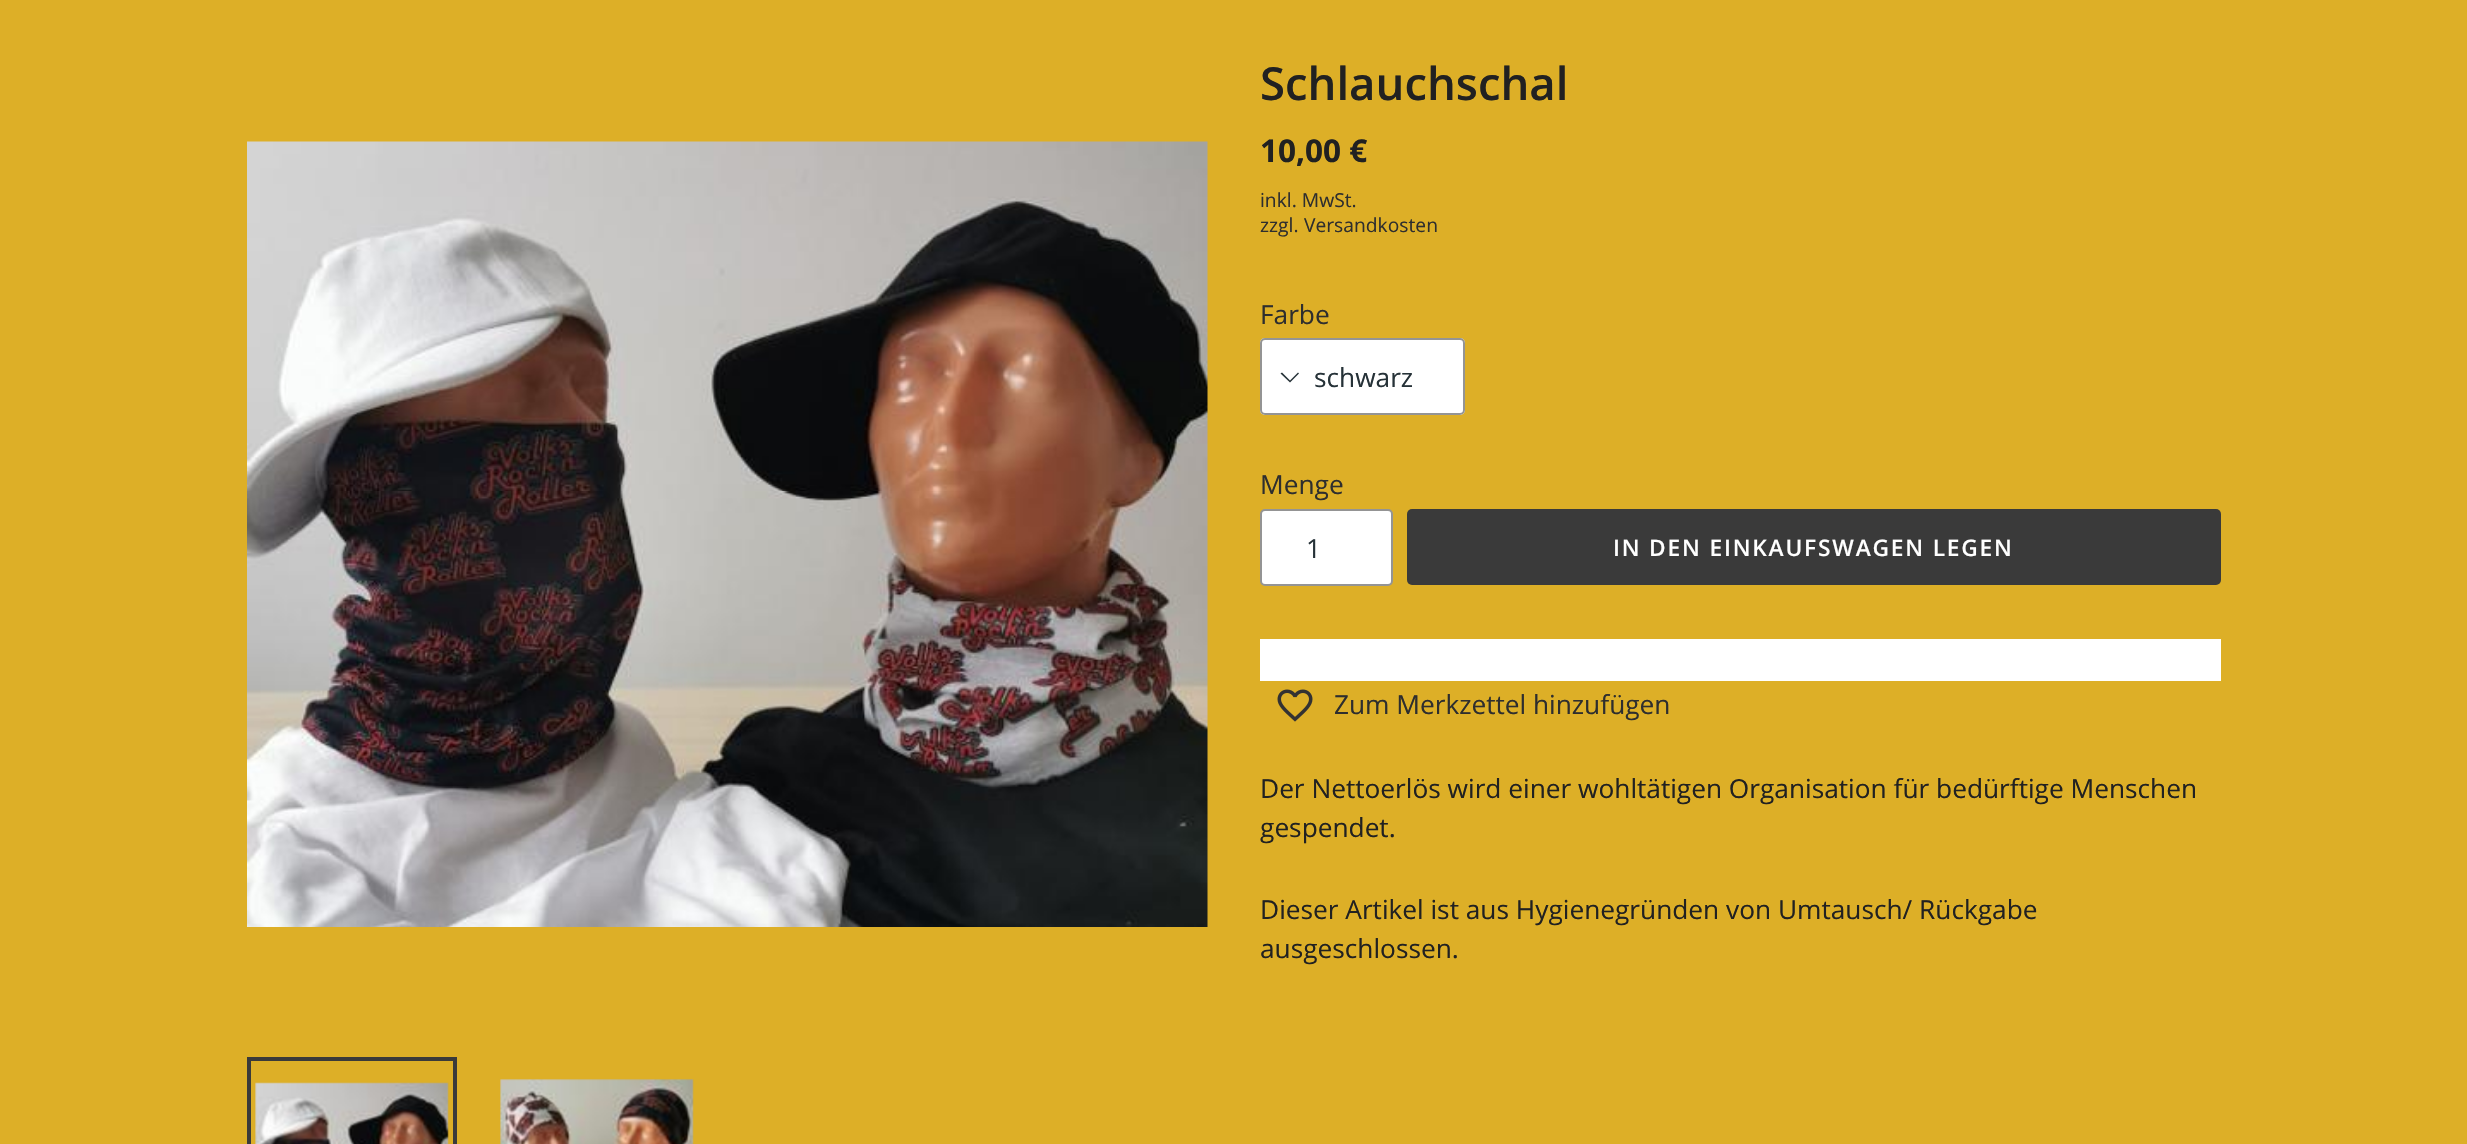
void draw(SkCanvas* canvas) {
	SkPaint fill;
	fill.setAntiAlias(true);
	auto makeFont = [&](const char* family, int weight, float size, bool italic = false) {
		SkFontStyle style(weight, SkFontStyle::kNormal_Width,
			italic ? SkFontStyle::kItalic_Slant : SkFontStyle::kUpright_Slant);
		SkFont result(fontMgr->matchFamilyStyle(family, style), size);
		result.setSubpixel(true);
		return result;
	};
	auto text = [&](const char* s, float x, float y, const SkFont& font) {
		canvas->drawString(s, x, y, font, fill);
	};
	auto spacedText = [&](const char* s, float x, float y, const SkFont& font, const SkPaint& ink, float letter, float word) {
		std::vector<SkGlyphID> glyphs(font.countText(s, strlen(s), SkTextEncoding::kUTF8));
		std::vector<float> xs(glyphs.size());
		font.textToGlyphs(s, strlen(s), SkTextEncoding::kUTF8, glyphs);
		font.getXPos(glyphs, xs, x);
		float extra = 0;
		for (size_t i = 0; i < glyphs.size(); i++) {
			xs[i] += extra;
			extra += letter + word * (glyphs[i] == font.unicharToGlyph(' '));
		}
		canvas->drawTextBlob(SkTextBlob::MakeFromPosHGlyphs(glyphs, xs, y, font), 0, 0, ink);
	};
	auto box = [&](float l, float t, float r, float b) {
		canvas->drawRect(SkRect::MakeLTRB(l, t, r, b), fill);
	};
	auto roundBox = [&](float l, float t, float r, float b, float radius) {
		canvas->drawRoundRect(SkRect::MakeLTRB(l, t, r, b), radius, radius, fill);
	};
	auto picture = [&](const char* path, float l, float t, float r, float b) {
		auto image = SkImages::DeferredFromEncodedData(SkData::MakeFromFileName(path));
		canvas->drawImageRect(image, SkRect::MakeLTRB(l, t, r, b), SkSamplingOptions());
	};
	canvas->clear(0xFFDDAF27);
	picture("image0.png", 247, 141, 1208, 927);
	fill.setStyle(SkPaint::kStroke_Style);
	fill.setStrokeWidth(4);
	fill.setColor(0xFF3A3A3A);
	canvas->drawRect(SkRect::MakeLTRB(249, 1059, 455, 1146), fill);
	picture("image1.png", 255, 1082, 449, 1144);
	picture("image2.png", 500, 1079, 694, 1144);
	fill.setStyle(SkPaint::kFill_Style);
	fill.setColor(0xFFFFFFFF);
	roundBox(1260, 338, 1465, 415, 5);
	fill.setColor(0xFF263238);
	canvas->drawPath(SkPathBuilder().moveTo(1290, 382.5f).lineTo(1280.5f, 373.5f).lineTo(1282, 372.5f).lineTo(1290, 380.5f).lineTo(1298, 372.5f).lineTo(1299, 373.5f).close().detach(), fill);
	fill.setStyle(SkPaint::kStroke_Style);
	fill.setStrokeWidth(2);
	fill.setColor(0xFF949494);
	canvas->drawRoundRect(SkRect::MakeLTRB(1261, 339, 1464, 414), 4, 4, fill);
	fill.setStyle(SkPaint::kFill_Style);
	fill.setColor(0xFFFFFFFF);
	canvas->drawRoundRect(SkRect::MakeLTRB(1261, 510, 1392, 585), 4, 4, fill);
	fill.setStyle(SkPaint::kStroke_Style);
	fill.setColor(0xFF949494);
	canvas->drawRoundRect(SkRect::MakeLTRB(1261, 510, 1392, 585), 4, 4, fill);
	fill.setStyle(SkPaint::kFill_Style);
	fill.setColor(0xFF3A3A3A);
	roundBox(1407, 509, 2221, 585, 5);
	fill.setColor(0xFFFFFFFF);
	box(1260, 639, 2221, 681);
	picture("image3.png", 1277, 689, 1313, 722);
	auto font1 = makeFont("Open Sans", 600, 45.5f);
	fill.setColor(0xFF212121);
	text("Schlauchschal", 1260, 100, font1);
	auto font2 = makeFont("Open Sans", 700, 31.5f);
	text("10,00 €", 1260, 162, font2);
	auto font3 = makeFont("Open Sans", 400, 19.25f);
	fill.setColor(0xFF2E2E2E);
	text("inkl. MwSt.", 1260, 207, font3);
	text("zzgl.", 1260, 232, font3);
	text("Versandkosten", 1304, 232, font3);
	auto font4 = makeFont("Open Sans", 400, 26.25f);
	text("Farbe", 1260, 324, font4);
	fill.setColor(0xFF263238);
	text("schwarz", 1314, 387, font4);
	fill.setColor(0xFF2E2E2E);
	text("Menge", 1260, 494, font4);
	fill.setColor(0xFF263238);
	text("1", 1306, 558, font4);
	auto font5 = makeFont("Open Sans", 600, 22.75f);
	fill.setColor(0xFFFFFFFF);
	spacedText("IN DEN EINKAUFSWAGEN LEGEN", 1613, 556, font5, fill, 1.8f, 0);
	fill.setColor(0xFF2E2E2E);
	text("Zum Merkzettel hinzufügen", 1334, 714, font4);
	fill.setColor(0xFF212121);
	text("Der Nettoerlös wird einer wohltätigen Organisation für bedürftige Menschen", 1260, 798, font4);
	text("gespendet.", 1260, 837, font4);
	text("Dieser Artikel ist aus Hygienegründen von Umtausch/ Rückgabe", 1260, 919, font4);
	text("ausgeschlossen.", 1260, 958, font4);
}
